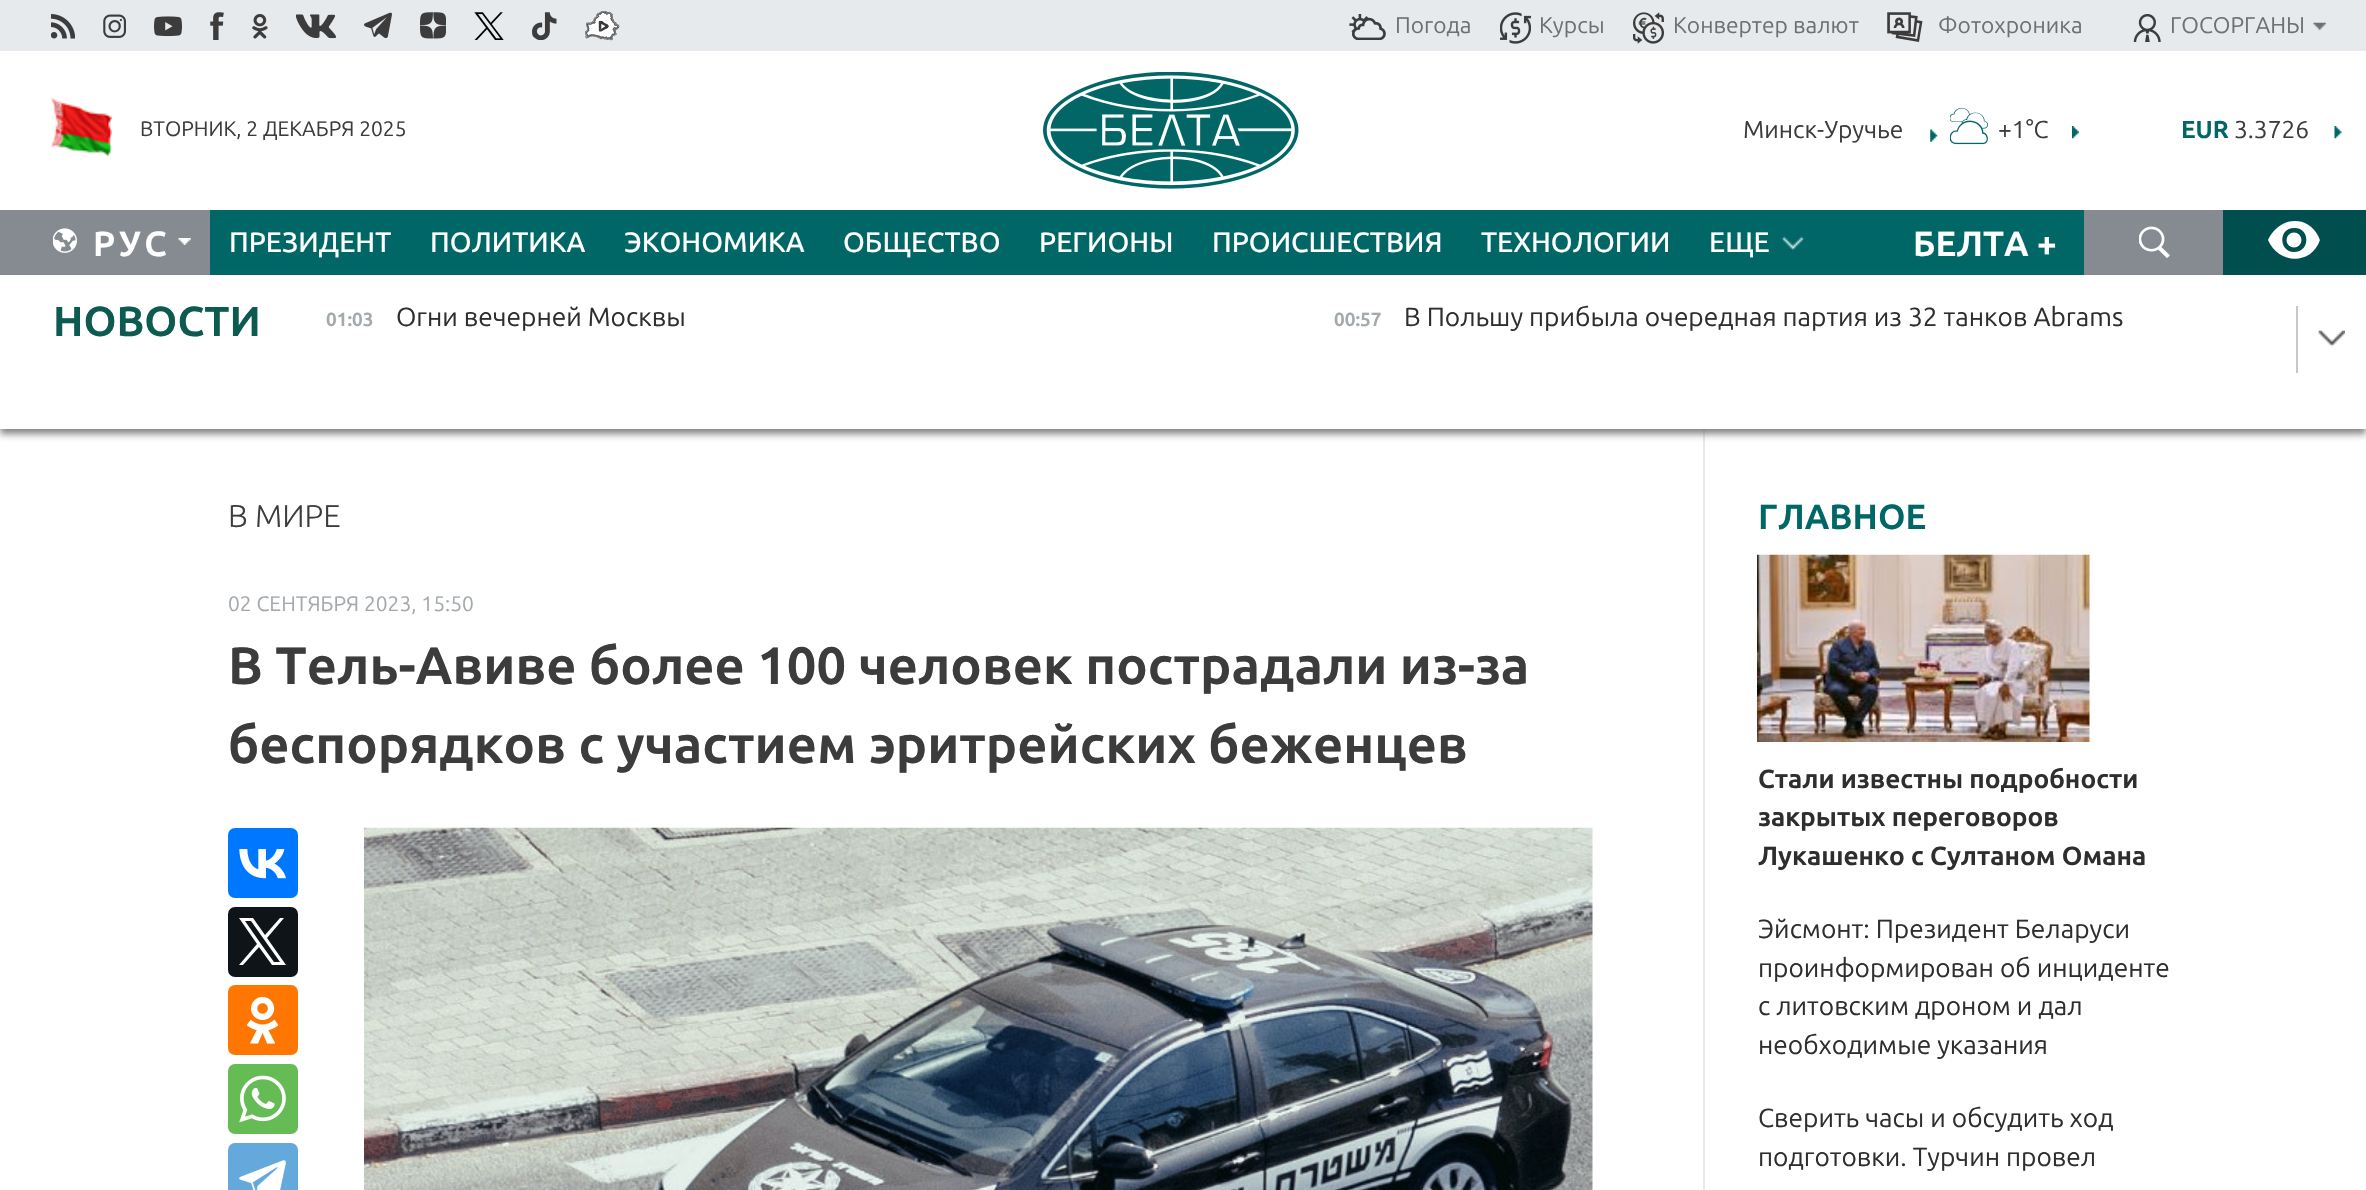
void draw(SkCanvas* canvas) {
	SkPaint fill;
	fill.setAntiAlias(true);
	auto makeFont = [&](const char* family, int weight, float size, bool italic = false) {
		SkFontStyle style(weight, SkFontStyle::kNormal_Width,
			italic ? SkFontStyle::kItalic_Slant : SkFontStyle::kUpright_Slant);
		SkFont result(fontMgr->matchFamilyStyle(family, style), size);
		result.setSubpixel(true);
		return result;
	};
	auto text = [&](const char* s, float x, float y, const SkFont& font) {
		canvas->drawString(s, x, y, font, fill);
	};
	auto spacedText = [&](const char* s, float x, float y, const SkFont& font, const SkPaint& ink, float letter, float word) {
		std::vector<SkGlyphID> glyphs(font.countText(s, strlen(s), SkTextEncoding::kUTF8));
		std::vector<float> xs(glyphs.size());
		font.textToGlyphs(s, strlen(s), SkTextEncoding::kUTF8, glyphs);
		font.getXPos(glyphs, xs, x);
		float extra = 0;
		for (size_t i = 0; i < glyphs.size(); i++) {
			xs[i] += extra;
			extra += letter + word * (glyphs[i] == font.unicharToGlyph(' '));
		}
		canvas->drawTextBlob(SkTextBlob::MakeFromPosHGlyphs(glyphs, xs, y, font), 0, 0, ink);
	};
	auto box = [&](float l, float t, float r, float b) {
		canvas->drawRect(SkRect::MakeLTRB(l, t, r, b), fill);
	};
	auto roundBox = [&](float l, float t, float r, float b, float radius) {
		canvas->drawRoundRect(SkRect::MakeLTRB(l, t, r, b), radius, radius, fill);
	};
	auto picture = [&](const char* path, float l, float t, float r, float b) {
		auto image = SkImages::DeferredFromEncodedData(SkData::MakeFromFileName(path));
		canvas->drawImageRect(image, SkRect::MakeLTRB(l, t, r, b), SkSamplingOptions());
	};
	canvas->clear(0xFFFFFFFF);
	fill.setColor(0xFFE6EAED);
	box(0, 0, 2366, 51);
	picture("image0.png", 51, 14, 75, 39);
	picture("image1.png", 103, 14, 126, 38);
	picture("image2.png", 154, 16, 182, 37);
	picture("image3.png", 210, 12, 224, 40);
	picture("image4.png", 252, 14, 268, 39);
	picture("image5.png", 296, 14, 336, 39);
	picture("image6.png", 364, 12, 392, 39);
	picture("image7.png", 420, 12, 446, 39);
	picture("image8.png", 474, 12, 504, 40);
	picture("image9.png", 532, 12, 557, 40);
	picture("image10.png", 585, 11, 620, 41);
	picture("image11.png", 1349, 14, 1386, 40);
	picture("image12.png", 1500, 12, 1531, 44);
	picture("image13.png", 1633, 12, 1664, 44);
	picture("image14.png", 1887, 12, 1923, 42);
	picture("image15.png", 2313, 22, 2326, 30);
	picture("image16.png", 2133, 14, 2161, 42);
	picture("image17.png", 50, 98, 112, 156);
	picture("image18.png", 1043, 72, 1299, 189);
	picture("image19.png", 1930, 129, 1938, 142);
	picture("image20.png", 1950, 107, 1988, 145);
	picture("image21.png", 2072, 126, 2079, 139);
	picture("image22.png", 2334, 126, 2342, 139);
	fill.setColor(0xFF006666);
	box(210, 210, 2084, 275);
	fill.setColor(0xFF858B90);
	box(0, 210, 210, 275);
	picture("image23.png", 53, 228, 77, 253);
	picture("image24.png", 178, 238, 191, 245);
	picture("image25.png", 1781, 236, 1805, 251);
	box(2084, 210, 2223, 275);
	picture("image26.png", 2139, 226, 2170, 258);
	fill.setColor(0xFF004E4E);
	box(2223, 210, 2366, 275);
	fill.setColor(0xFFFFFFFF);
	canvas->drawPath(SkPathBuilder().moveTo(2295, 221).cubicTo(2276, 221, 2268, 240, 2268, 240).cubicTo(2278, 264, 2311, 266, 2320, 240).cubicTo(2320, 240, 2314, 221, 2295, 221).close().moveTo(2294, 252).cubicTo(2279, 252, 2278, 228, 2294, 228).cubicTo(2310, 227, 2311, 252, 2294, 252).close().detach(), fill);
	canvas->drawCircle(2294, 240, 7.5f, fill);
	fill.setColor(0xFFE6EAED);
	box(1703, 429, 1705, 1190);
	fill.setColor(0xCC646464);
	fill.setMaskFilter(SkMaskFilter::MakeBlur(kNormal_SkBlurStyle, 3.5f));
	canvas->drawRect(SkRect::MakeLTRB(0, 280, 2366, 434), fill);
	fill.setMaskFilter(nullptr);
	fill.setColor(0xFFFFFFFF);
	box(0, 275, 2366, 429);
	picture("image27.png", 2318, 330, 2345, 347);
	fill.setColor(0xFFC8C8C8);
	box(2296, 306, 2298, 373);
	fill.setColor(0xFF0077FF);
	roundBox(228, 828, 298, 898, 7);
	picture("image28.png", 239, 849, 286, 879);
	fill.setColor(0xFF0F1419);
	roundBox(228, 907, 298, 977, 7);
	fill.setColor(0xFFFFFFFF);
	canvas->drawPath(SkPathBuilder().moveTo(267, 938).lineTo(284, 918).lineTo(280, 918).lineTo(265, 935).lineTo(253, 918).lineTo(239, 918).lineTo(257, 944).lineTo(239, 965).lineTo(243, 965).lineTo(259, 947).lineTo(272, 965).lineTo(286, 965).close().moveTo(261, 944).lineTo(245, 921).lineTo(251, 921).lineTo(280, 962).lineTo(274, 962).close().detach(), fill);
	fill.setColor(0xFFFF7700);
	roundBox(228, 985, 298, 1055, 7);
	picture("image29.png", 247, 996, 279, 1044);
	fill.setColor(0xFF65BC54);
	roundBox(228, 1064, 298, 1134, 7);
	picture("image30.png", 239, 1075, 286, 1123);
	fill.setColor(0xFF64A9DC);
	roundBox(228, 1143, 298, 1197, 7);
	picture("image31.png", 239, 1160, 286, 1190);
	picture("image32.png", 364, 827, 1593, 1190);
	picture("image33.png", 1757, 554, 2090, 742);
	auto font1 = makeFont("Ubuntu", 400, 22.75f);
	fill.setColor(0xFF6E7172);
	text("Погода", 1395, 33, font1);
	text("Курсы", 1539, 33, font1);
	text("Конвертер валют", 1673, 33, font1);
	text("Фотохроника", 1938, 33, font1);
	text("ГОСОРГАНЫ", 2170, 33, font1);
	auto font2 = makeFont("Ubuntu", 400, 21);
	fill.setColor(0xFF3C3C3C);
	text("ВТОРНИК, 2 ДЕКАБРЯ 2025", 140, 136, font2);
	auto font3 = makeFont("Ubuntu", 400, 24.5f);
	text("Минск-Уручье", 1743, 138, font3);
	text("+1°C", 1998, 138, font3);
	auto font4 = makeFont("Ubuntu", 700, 24.5f);
	fill.setColor(0xFF006666);
	text("EUR", 2181, 138, font4);
	fill.setColor(0xFF3C3C3C);
	text("3.3726", 2234, 138, font3);
	auto font5 = makeFont("Ubuntu", 700, 35);
	fill.setColor(0xFFFFFFFF);
	spacedText("РУС", 93, 256, font5, fill, 3.5f, 0);
	auto font6 = makeFont("Ubuntu", 500, 28);
	text("ПРЕЗИДЕНТ", 229, 252, font6);
	text("ПОЛИТИКА", 430, 252, font6);
	text("ЭКОНОМИКА", 624, 252, font6);
	text("ОБЩЕСТВО", 843, 252, font6);
	text("РЕГИОНЫ", 1039, 252, font6);
	text("ПРОИСШЕСТВИЯ", 1212, 252, font6);
	text("ТЕХНОЛОГИИ", 1481, 252, font6);
	text("ЕЩЕ", 1709, 252, font6);
	text("БЕЛТА +", 1913, 256, font5);
	auto font7 = makeFont("Ubuntu", 700, 42);
	fill.setColor(0xFF0D5A50);
	text("НОВОСТИ", 53, 336, font7);
	auto font8 = makeFont("Ubuntu", 700, 19);
	fill.setColor(0xFFA3A9AD);
	text("01:03", 326, 326, font8);
	auto font9 = makeFont("Ubuntu", 400, 26.25f);
	fill.setColor(0xFF2E2E2E);
	text("Огни вечерней Москвы", 396, 326, font9);
	fill.setColor(0xFFA3A9AD);
	text("00:57", 1334, 326, font8);
	fill.setColor(0xFF2E2E2E);
	text("В Польшу прибыла очередная партия из 32 танков Abrams", 1404, 326, font9);
	auto font10 = makeFont("Ubuntu", 300, 31.5f);
	fill.setColor(0xFF3C3C3C);
	text("В МИРЕ", 228, 527, font10);
	fill.setColor(0xFFA3A9AD);
	text("02 СЕНТЯБРЯ 2023, 15:50", 228, 611, font2);
	auto font11 = makeFont("Ubuntu", 700, 52.5f);
	fill.setColor(0xFF3C3C3C);
	text("В Тель-Авиве более 100 человек пострадали из-за", 228, 684, font11);
	text("беспорядков с участием эритрейских беженцев", 228, 763, font11);
	fill.setColor(0xFF006666);
	text("ГЛАВНОЕ", 1758, 529, font5);
	auto font12 = makeFont("Ubuntu", 700, 26.25f);
	fill.setColor(0xFF2E2E2E);
	text("Стали известны подробности", 1758, 788, font12);
	text("закрытых переговоров", 1758, 826, font12);
	text("Лукашенко с Султаном Омана", 1758, 865, font12);
	text("Эйсмонт: Президент Беларуси", 1758, 938, font9);
	text("проинформирован об инциденте", 1758, 977, font9);
	text("с литовским дроном и дал", 1758, 1015, font9);
	text("необходимые указания", 1758, 1054, font9);
	text("Сверить часы и обсудить ход", 1758, 1127, font9);
	text("подготовки. Турчин провел", 1758, 1166, font9);
}
